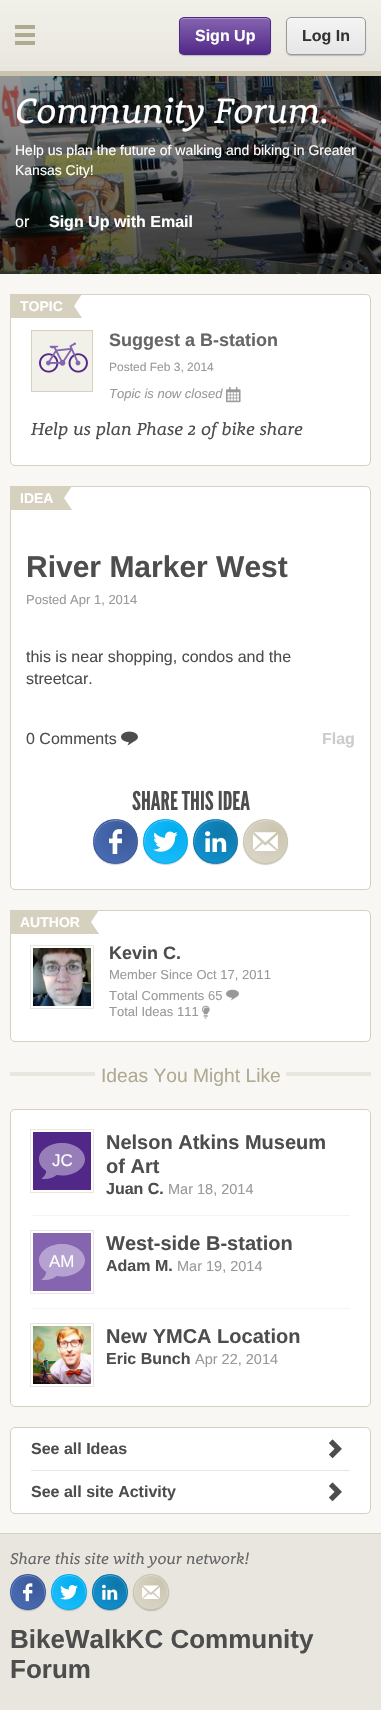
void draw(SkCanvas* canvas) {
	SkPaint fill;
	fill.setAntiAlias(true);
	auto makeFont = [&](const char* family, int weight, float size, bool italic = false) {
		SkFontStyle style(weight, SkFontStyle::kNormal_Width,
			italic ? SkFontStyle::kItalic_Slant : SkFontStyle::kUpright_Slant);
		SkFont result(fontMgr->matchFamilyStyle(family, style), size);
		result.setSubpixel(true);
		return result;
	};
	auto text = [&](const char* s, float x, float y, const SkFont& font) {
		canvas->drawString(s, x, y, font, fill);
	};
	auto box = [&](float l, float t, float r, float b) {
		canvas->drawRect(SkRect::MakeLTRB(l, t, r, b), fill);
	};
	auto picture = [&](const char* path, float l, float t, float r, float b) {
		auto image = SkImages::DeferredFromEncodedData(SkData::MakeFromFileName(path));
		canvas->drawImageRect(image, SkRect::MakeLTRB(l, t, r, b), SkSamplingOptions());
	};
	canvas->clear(0xFFF8F7F4);
	{
		const SkColor colors[] = {0xFFF1F0E9, 0xFFE8E6DF};
		const float stops[] = {0, 1};
		const SkPoint ends[] = {{191, 0}, {191, 71}};
		fill.setShader(SkGradientShader::MakeLinear(ends, colors, stops, 2, SkTileMode::kClamp));
		fill.setAlpha(255);
	}
	box(0, 0, 381, 71);
	fill.setShader(nullptr);
	fill.setColor(0xFFCAC4AE);
	box(0, 71, 381, 76);
	picture("image0.png", 15, 25, 35, 45);
	fill.setColor(0x33000000);
	fill.setMaskFilter(SkMaskFilter::MakeBlur(kNormal_SkBlurStyle, 0.5f));
	canvas->drawRoundRect(SkRect::MakeLTRB(179, 18, 271, 56), 5, 5, fill);
	fill.setMaskFilter(nullptr);
	canvas->save();
	canvas->clipPath(SkPathBuilder().moveTo(184, 17).lineTo(266, 17).cubicTo(269, 17, 271, 19, 271, 22).lineTo(271, 50).cubicTo(271, 53, 269, 55, 266, 55).lineTo(184, 55).cubicTo(181, 55, 179, 53, 179, 50).lineTo(179, 22).cubicTo(179, 19, 181, 17, 184, 17).close().detach(), true);
	{
		const SkColor colors[] = {0xFF512888, 0xFF8564B0};
		const float stops[] = {0, 1};
		const SkPoint ends[] = {{225, 54}, {225, 18}};
		fill.setShader(SkGradientShader::MakeLinear(ends, colors, stops, 2, SkTileMode::kClamp));
		fill.setAlpha(255);
	}
	box(179, 18, 271, 54);
	canvas->restore();
	fill.setShader(nullptr);
	fill.setColor(0x4DFFFFFF);
	canvas->drawPath(SkPathBuilder().moveTo(184, 19).lineTo(266, 19).cubicTo(268, 19, 270, 21, 270, 23).cubicTo(270, 15, 257, 18, 252, 18).lineTo(198, 18).cubicTo(193, 18, 180, 15, 180, 23).cubicTo(180, 21, 182, 19, 184, 19).close().detach(), fill);
	fill.setStyle(SkPaint::kStroke_Style);
	fill.setStrokeWidth(1);
	fill.setColor(0xFF512888);
	canvas->drawRoundRect(SkRect::MakeLTRB(179.5f, 17.5f, 270.5f, 54.5f), 4.5f, 4.5f, fill);
	fill.setStyle(SkPaint::kFill_Style);
	fill.setColor(0x33000000);
	fill.setMaskFilter(SkMaskFilter::MakeBlur(kNormal_SkBlurStyle, 0.5f));
	canvas->drawRoundRect(SkRect::MakeLTRB(286, 18, 366, 56), 5, 5, fill);
	fill.setMaskFilter(nullptr);
	canvas->save();
	canvas->clipPath(SkPathBuilder().moveTo(291, 17).lineTo(361, 17).cubicTo(364, 17, 366, 19, 366, 22).lineTo(366, 50).cubicTo(366, 53, 364, 55, 361, 55).lineTo(291, 55).cubicTo(288, 55, 286, 53, 286, 50).lineTo(286, 22).cubicTo(286, 19, 288, 17, 291, 17).close().detach(), true);
	{
		const SkColor colors[] = {0xFFE6E6E6, 0xFFF4F4F4};
		const float stops[] = {0, 1};
		const SkPoint ends[] = {{326, 54}, {326, 18}};
		fill.setShader(SkGradientShader::MakeLinear(ends, colors, stops, 2, SkTileMode::kClamp));
		fill.setAlpha(255);
	}
	box(286, 18, 366, 54);
	canvas->restore();
	fill.setShader(nullptr);
	fill.setColor(0x4DFFFFFF);
	canvas->drawPath(SkPathBuilder().moveTo(291, 19).lineTo(361, 19).cubicTo(363, 19, 365, 21, 365, 23).cubicTo(365, 15, 354, 18, 349, 18).lineTo(303, 18).cubicTo(298, 18, 287, 15, 287, 23).cubicTo(287, 21, 289, 19, 291, 19).close().detach(), fill);
	fill.setStyle(SkPaint::kStroke_Style);
	fill.setColor(0xFF999999);
	canvas->drawRoundRect(SkRect::MakeLTRB(286.5f, 17.5f, 365.5f, 54.5f), 4.5f, 4.5f, fill);
	picture("image1.png", 0, 76, 381, 274);
	fill.setStyle(SkPaint::kFill_Style);
	fill.setColor(0xFFFFFFFF);
	canvas->drawRoundRect(SkRect::MakeLTRB(10.5f, 294.5f, 370.5f, 465.5f), 4.5f, 4.5f, fill);
	fill.setStyle(SkPaint::kStroke_Style);
	fill.setColor(0xFFD6D1BE);
	canvas->drawRoundRect(SkRect::MakeLTRB(10.5f, 294.5f, 370.5f, 465.5f), 4.5f, 4.5f, fill);
	fill.setStyle(SkPaint::kFill_Style);
	box(10, 294, 66, 318);
	canvas->drawPath(SkPathBuilder().moveTo(66, 294).lineTo(82, 294).lineTo(74, 306).close().moveTo(82, 318).lineTo(66, 318).lineTo(74, 306).close().detach(), fill);
	box(66, 294, 74, 318);
	fill.setColor(0xFFF1F0E9);
	canvas->drawRect(SkRect::MakeLTRB(31.5f, 330.5f, 92.5f, 391.5f), fill);
	fill.setStyle(SkPaint::kStroke_Style);
	fill.setColor(0xFFD6D1BE);
	canvas->drawRect(SkRect::MakeLTRB(31.5f, 330.5f, 92.5f, 391.5f), fill);
	picture("image3.png", 39, 353, 88, 373);
	picture("image2.png", 46, 342, 81, 366);
	picture("image4.png", 226, 387, 241, 403);
	fill.setStyle(SkPaint::kFill_Style);
	fill.setColor(0xFFFFFFFF);
	canvas->drawRoundRect(SkRect::MakeLTRB(10.5f, 486.5f, 370.5f, 889.5f), 4.5f, 4.5f, fill);
	fill.setStyle(SkPaint::kStroke_Style);
	fill.setColor(0xFFD6D1BE);
	canvas->drawRoundRect(SkRect::MakeLTRB(10.5f, 486.5f, 370.5f, 889.5f), 4.5f, 4.5f, fill);
	fill.setStyle(SkPaint::kFill_Style);
	box(10, 486, 56, 510);
	canvas->drawPath(SkPathBuilder().moveTo(56, 486).lineTo(72, 486).lineTo(64, 498).close().moveTo(72, 510).lineTo(56, 510).lineTo(64, 498).close().detach(), fill);
	box(56, 486, 64, 510);
	picture("image5.png", 121, 731, 138, 746);
	fill.setColor(0x33000000);
	fill.setMaskFilter(SkMaskFilter::MakeBlur(kNormal_SkBlurStyle, 0.5f));
	canvas->drawRoundRect(SkRect::MakeLTRB(93, 820, 138, 865), 22.5f, 22.5f, fill);
	fill.setMaskFilter(nullptr);
	canvas->save();
	canvas->clipPath(SkPathBuilder().moveTo(115.5f, 819).cubicTo(128, 819, 138, 829, 138, 841.5f).cubicTo(138, 854, 128, 864, 115.5f, 864).cubicTo(103, 864, 93, 854, 93, 841.5f).cubicTo(93, 829, 103, 819, 115.5f, 819).close().detach(), true);
	{
		const SkColor colors[] = {0xFF3B5998, 0xFF4C70BA};
		const float stops[] = {0, 1};
		fill.setShader(SkGradientShader::MakeRadial({124, 833}, 43, colors, stops, 2, SkTileMode::kClamp));
		fill.setAlpha(255);
	}
	box(94, 820, 137, 863);
	canvas->restore();
	fill.setShader(nullptr);
	fill.setColor(0x4DFFFFFF);
	canvas->drawPath(SkPathBuilder().moveTo(116, 821).cubicTo(130, 821, 137, 831, 137, 842).cubicTo(137, 838, 136, 833, 133, 829).cubicTo(120, 810, 89, 824, 95, 847).cubicTo(93, 835, 100, 821, 116, 821).close().detach(), fill);
	fill.setStyle(SkPaint::kStroke_Style);
	fill.setColor(0xFF3B5998);
	canvas->drawCircle(115.5f, 841.5f, 22, fill);
	picture("image6.png", 109, 829, 122, 854);
	fill.setStyle(SkPaint::kFill_Style);
	fill.setColor(0x33000000);
	fill.setMaskFilter(SkMaskFilter::MakeBlur(kNormal_SkBlurStyle, 0.5f));
	canvas->drawRoundRect(SkRect::MakeLTRB(143, 820, 188, 865), 22.5f, 22.5f, fill);
	fill.setMaskFilter(nullptr);
	canvas->save();
	canvas->clipPath(SkPathBuilder().moveTo(165.5f, 819).cubicTo(178, 819, 188, 829, 188, 841.5f).cubicTo(188, 854, 178, 864, 165.5f, 864).cubicTo(153, 864, 143, 854, 143, 841.5f).cubicTo(143, 829, 153, 819, 165.5f, 819).close().detach(), true);
	{
		const SkColor colors[] = {0xFF00ACEE, 0xFF22C2FF};
		const float stops[] = {0, 1};
		fill.setShader(SkGradientShader::MakeRadial({174, 833}, 43, colors, stops, 2, SkTileMode::kClamp));
		fill.setAlpha(255);
	}
	box(144, 820, 187, 863);
	canvas->restore();
	fill.setShader(nullptr);
	fill.setColor(0x4DFFFFFF);
	canvas->drawPath(SkPathBuilder().moveTo(166, 821).cubicTo(180, 821, 187, 831, 187, 842).cubicTo(187, 838, 186, 833, 183, 829).cubicTo(170, 810, 139, 824, 145, 847).cubicTo(143, 835, 150, 821, 166, 821).close().detach(), fill);
	fill.setStyle(SkPaint::kStroke_Style);
	fill.setColor(0xFF00ACEE);
	canvas->drawCircle(165.5f, 841.5f, 22, fill);
	picture("image7.png", 153, 831, 178, 852);
	fill.setStyle(SkPaint::kFill_Style);
	fill.setColor(0x33000000);
	fill.setMaskFilter(SkMaskFilter::MakeBlur(kNormal_SkBlurStyle, 0.5f));
	canvas->drawRoundRect(SkRect::MakeLTRB(193, 820, 238, 865), 22.5f, 22.5f, fill);
	fill.setMaskFilter(nullptr);
	canvas->save();
	canvas->clipPath(SkPathBuilder().moveTo(215.5f, 819).cubicTo(228, 819, 238, 829, 238, 841.5f).cubicTo(238, 854, 228, 864, 215.5f, 864).cubicTo(203, 864, 193, 854, 193, 841.5f).cubicTo(193, 829, 203, 819, 215.5f, 819).close().detach(), true);
	{
		const SkColor colors[] = {0xFF0E76A8, 0xFF1297D7};
		const float stops[] = {0, 1};
		fill.setShader(SkGradientShader::MakeRadial({224, 833}, 43, colors, stops, 2, SkTileMode::kClamp));
		fill.setAlpha(255);
	}
	box(194, 820, 237, 863);
	canvas->restore();
	fill.setShader(nullptr);
	fill.setColor(0x4DFFFFFF);
	canvas->drawPath(SkPathBuilder().moveTo(216, 821).cubicTo(230, 821, 237, 831, 237, 842).cubicTo(237, 838, 236, 833, 233, 829).cubicTo(220, 810, 189, 824, 195, 847).cubicTo(193, 835, 200, 821, 216, 821).close().detach(), fill);
	fill.setStyle(SkPaint::kStroke_Style);
	fill.setColor(0xFF0E76A8);
	canvas->drawCircle(215.5f, 841.5f, 22, fill);
	picture("image8.png", 205, 831, 227, 852);
	fill.setStyle(SkPaint::kFill_Style);
	fill.setColor(0x33000000);
	fill.setMaskFilter(SkMaskFilter::MakeBlur(kNormal_SkBlurStyle, 0.5f));
	canvas->drawRoundRect(SkRect::MakeLTRB(243, 820, 288, 865), 22.5f, 22.5f, fill);
	fill.setMaskFilter(nullptr);
	canvas->save();
	canvas->clipPath(SkPathBuilder().moveTo(265.5f, 819).cubicTo(278, 819, 288, 829, 288, 841.5f).cubicTo(288, 854, 278, 864, 265.5f, 864).cubicTo(253, 864, 243, 854, 243, 841.5f).cubicTo(243, 829, 253, 819, 265.5f, 819).close().detach(), true);
	{
		const SkColor colors[] = {0xFFCAC4AE, 0xFFDEDACD};
		const float stops[] = {0, 1};
		fill.setShader(SkGradientShader::MakeRadial({274, 833}, 43, colors, stops, 2, SkTileMode::kClamp));
		fill.setAlpha(255);
	}
	box(244, 820, 287, 863);
	canvas->restore();
	fill.setShader(nullptr);
	fill.setColor(0x4DFFFFFF);
	canvas->drawPath(SkPathBuilder().moveTo(266, 821).cubicTo(280, 821, 287, 831, 287, 842).cubicTo(287, 838, 286, 833, 283, 829).cubicTo(270, 810, 239, 824, 245, 847).cubicTo(243, 835, 250, 821, 266, 821).close().detach(), fill);
	fill.setStyle(SkPaint::kStroke_Style);
	fill.setColor(0xFFCAC4AE);
	canvas->drawCircle(265.5f, 841.5f, 22, fill);
	picture("image9.png", 253, 832, 278, 851);
	fill.setStyle(SkPaint::kFill_Style);
	fill.setColor(0xFFFFFFFF);
	canvas->drawRoundRect(SkRect::MakeLTRB(10.5f, 910.5f, 370.5f, 1041.5f), 4.5f, 4.5f, fill);
	fill.setStyle(SkPaint::kStroke_Style);
	fill.setColor(0xFFD6D1BE);
	canvas->drawRoundRect(SkRect::MakeLTRB(10.5f, 910.5f, 370.5f, 1041.5f), 4.5f, 4.5f, fill);
	fill.setStyle(SkPaint::kFill_Style);
	box(10, 910, 83, 934);
	canvas->drawPath(SkPathBuilder().moveTo(83, 910).lineTo(99, 910).lineTo(91, 922).close().moveTo(99, 934).lineTo(83, 934).lineTo(91, 922).close().detach(), fill);
	box(83, 910, 91, 934);
	fill.setStyle(SkPaint::kStroke_Style);
	fill.setColor(0xFFE8E6DF);
	canvas->drawRect(SkRect::MakeLTRB(30.5f, 945.5f, 93.5f, 1008.5f), fill);
	picture("image10.png", 33, 948, 91, 1006);
	picture("image11.png", 226, 989, 239, 1001);
	picture("image12.png", 202, 1005, 210, 1019);
	fill.setStyle(SkPaint::kFill_Style);
	box(10, 1072, 371, 1076);
	fill.setColor(0xFFF8F7F4);
	box(95, 1072, 286, 1076);
	fill.setColor(0xFFFFFFFF);
	canvas->drawRoundRect(SkRect::MakeLTRB(10.5f, 1109.5f, 370.5f, 1406.5f), 4.5f, 4.5f, fill);
	fill.setStyle(SkPaint::kStroke_Style);
	fill.setColor(0xFFD6D1BE);
	canvas->drawRoundRect(SkRect::MakeLTRB(10.5f, 1109.5f, 370.5f, 1406.5f), 4.5f, 4.5f, fill);
	fill.setColor(0xFFE8E6DF);
	canvas->drawRect(SkRect::MakeLTRB(30.5f, 1129.5f, 93.5f, 1192.5f), fill);
	fill.setStyle(SkPaint::kFill_Style);
	fill.setColor(0xFF512888);
	box(33, 1132, 91, 1190);
	picture("image13.png", 39, 1143, 85, 1179);
	fill.setColor(0xFFF4F4F4);
	box(31, 1215, 350, 1216);
	fill.setStyle(SkPaint::kStroke_Style);
	fill.setColor(0xFFE8E6DF);
	canvas->drawRect(SkRect::MakeLTRB(30.5f, 1230.5f, 93.5f, 1293.5f), fill);
	fill.setStyle(SkPaint::kFill_Style);
	fill.setColor(0xFF8564B0);
	box(33, 1233, 91, 1291);
	picture("image14.png", 39, 1244, 85, 1280);
	fill.setColor(0xFFF4F4F4);
	box(31, 1308, 350, 1309);
	fill.setStyle(SkPaint::kStroke_Style);
	fill.setColor(0xFFE8E6DF);
	canvas->drawRect(SkRect::MakeLTRB(30.5f, 1323.5f, 93.5f, 1386.5f), fill);
	picture("image15.png", 33, 1326, 91, 1384);
	fill.setStyle(SkPaint::kFill_Style);
	fill.setColor(0xFFFFFFFF);
	canvas->drawRoundRect(SkRect::MakeLTRB(10.5f, 1427.5f, 370.5f, 1513.5f), 4.5f, 4.5f, fill);
	fill.setStyle(SkPaint::kStroke_Style);
	fill.setColor(0xFFD6D1BE);
	canvas->drawRoundRect(SkRect::MakeLTRB(10.5f, 1427.5f, 370.5f, 1513.5f), 4.5f, 4.5f, fill);
	picture("image16.png", 329, 1439, 342, 1459);
	fill.setStyle(SkPaint::kFill_Style);
	fill.setColor(0xFFE8E6DF);
	box(31, 1470, 350, 1471);
	picture("image16.png", 329, 1482, 342, 1502);
	box(0, 1534, 381, 1710);
	fill.setColor(0xFFD6D1BE);
	box(0, 1533, 381, 1534);
	fill.setColor(0x33000000);
	fill.setMaskFilter(SkMaskFilter::MakeBlur(kNormal_SkBlurStyle, 0.5f));
	canvas->drawRoundRect(SkRect::MakeLTRB(10, 1575, 46, 1611), 18, 18, fill);
	fill.setMaskFilter(nullptr);
	canvas->save();
	canvas->clipPath(SkPathBuilder().moveTo(28, 1574).cubicTo(38, 1574, 46, 1582, 46, 1592).cubicTo(46, 1602, 38, 1610, 28, 1610).cubicTo(18, 1610, 10, 1602, 10, 1592).cubicTo(10, 1582, 18, 1574, 28, 1574).close().detach(), true);
	{
		const SkColor colors[] = {0xFF3B5998, 0xFF4C70BA};
		const float stops[] = {0, 1};
		fill.setShader(SkGradientShader::MakeRadial({35, 1585}, 34, colors, stops, 2, SkTileMode::kClamp));
		fill.setAlpha(255);
	}
	box(11, 1575, 45, 1609);
	canvas->restore();
	fill.setShader(nullptr);
	fill.setColor(0x4DFFFFFF);
	canvas->drawPath(SkPathBuilder().moveTo(28, 1576).cubicTo(41.5f, 1576, 46.5f, 1588.5f, 43.5f, 1598.5f).cubicTo(45.5f, 1594.5f, 45.5f, 1589.5f, 43.5f, 1585.5f).cubicTo(42.5f, 1582.5f, 40, 1579.5f, 37.5f, 1578).cubicTo(23.5f, 1568.5f, 6, 1583.5f, 12.5f, 1598.5f).cubicTo(9.5f, 1588.5f, 14.5f, 1576, 28, 1576).close().detach(), fill);
	fill.setStyle(SkPaint::kStroke_Style);
	fill.setColor(0xFF3B5998);
	canvas->drawCircle(28, 1592, 17.5f, fill);
	picture("image17.png", 23, 1583, 33, 1602);
	fill.setStyle(SkPaint::kFill_Style);
	fill.setColor(0x33000000);
	fill.setMaskFilter(SkMaskFilter::MakeBlur(kNormal_SkBlurStyle, 0.5f));
	canvas->drawRoundRect(SkRect::MakeLTRB(51, 1575, 87, 1611), 18, 18, fill);
	fill.setMaskFilter(nullptr);
	canvas->save();
	canvas->clipPath(SkPathBuilder().moveTo(69, 1574).cubicTo(79, 1574, 87, 1582, 87, 1592).cubicTo(87, 1602, 79, 1610, 69, 1610).cubicTo(59, 1610, 51, 1602, 51, 1592).cubicTo(51, 1582, 59, 1574, 69, 1574).close().detach(), true);
	{
		const SkColor colors[] = {0xFF00ACEE, 0xFF22C2FF};
		const float stops[] = {0, 1};
		fill.setShader(SkGradientShader::MakeRadial({76, 1585}, 34, colors, stops, 2, SkTileMode::kClamp));
		fill.setAlpha(255);
	}
	box(52, 1575, 86, 1609);
	canvas->restore();
	fill.setShader(nullptr);
	fill.setColor(0x4DFFFFFF);
	canvas->drawPath(SkPathBuilder().moveTo(69, 1576).cubicTo(82.5f, 1576, 87.5f, 1588.5f, 84.5f, 1598.5f).cubicTo(86.5f, 1594.5f, 86.5f, 1589.5f, 84.5f, 1585.5f).cubicTo(83.5f, 1582.5f, 81, 1579.5f, 78.5f, 1578).cubicTo(64.5f, 1568.5f, 47, 1583.5f, 53.5f, 1598.5f).cubicTo(50.5f, 1588.5f, 55.5f, 1576, 69, 1576).close().detach(), fill);
	fill.setStyle(SkPaint::kStroke_Style);
	fill.setColor(0xFF00ACEE);
	canvas->drawCircle(69, 1592, 17.5f, fill);
	picture("image18.png", 60, 1585, 78, 1600);
	fill.setStyle(SkPaint::kFill_Style);
	fill.setColor(0x33000000);
	fill.setMaskFilter(SkMaskFilter::MakeBlur(kNormal_SkBlurStyle, 0.5f));
	canvas->drawRoundRect(SkRect::MakeLTRB(92, 1575, 128, 1611), 18, 18, fill);
	fill.setMaskFilter(nullptr);
	canvas->save();
	canvas->clipPath(SkPathBuilder().moveTo(110, 1574).cubicTo(120, 1574, 128, 1582, 128, 1592).cubicTo(128, 1602, 120, 1610, 110, 1610).cubicTo(100, 1610, 92, 1602, 92, 1592).cubicTo(92, 1582, 100, 1574, 110, 1574).close().detach(), true);
	{
		const SkColor colors[] = {0xFF0E76A8, 0xFF1297D7};
		const float stops[] = {0, 1};
		fill.setShader(SkGradientShader::MakeRadial({117, 1585}, 34, colors, stops, 2, SkTileMode::kClamp));
		fill.setAlpha(255);
	}
	box(93, 1575, 127, 1609);
	canvas->restore();
	fill.setShader(nullptr);
	fill.setColor(0x4DFFFFFF);
	canvas->drawPath(SkPathBuilder().moveTo(110, 1576).cubicTo(123.5f, 1576, 128.5f, 1588.5f, 125.5f, 1598.5f).cubicTo(127.5f, 1594.5f, 127.5f, 1589.5f, 125.5f, 1585.5f).cubicTo(124.5f, 1582.5f, 122, 1579.5f, 119.5f, 1578).cubicTo(105.5f, 1568.5f, 88, 1583.5f, 94.5f, 1598.5f).cubicTo(91.5f, 1588.5f, 96.5f, 1576, 110, 1576).close().detach(), fill);
	fill.setStyle(SkPaint::kStroke_Style);
	fill.setColor(0xFF0E76A8);
	canvas->drawCircle(110, 1592, 17.5f, fill);
	picture("image19.png", 102, 1584, 118, 1600);
	fill.setStyle(SkPaint::kFill_Style);
	fill.setColor(0x33000000);
	fill.setMaskFilter(SkMaskFilter::MakeBlur(kNormal_SkBlurStyle, 0.5f));
	canvas->drawRoundRect(SkRect::MakeLTRB(133, 1575, 169, 1611), 18, 18, fill);
	fill.setMaskFilter(nullptr);
	canvas->save();
	canvas->clipPath(SkPathBuilder().moveTo(151, 1574).cubicTo(161, 1574, 169, 1582, 169, 1592).cubicTo(169, 1602, 161, 1610, 151, 1610).cubicTo(141, 1610, 133, 1602, 133, 1592).cubicTo(133, 1582, 141, 1574, 151, 1574).close().detach(), true);
	{
		const SkColor colors[] = {0xFFCAC4AE, 0xFFDEDACD};
		const float stops[] = {0, 1};
		fill.setShader(SkGradientShader::MakeRadial({158, 1585}, 34, colors, stops, 2, SkTileMode::kClamp));
		fill.setAlpha(255);
	}
	box(134, 1575, 168, 1609);
	canvas->restore();
	fill.setShader(nullptr);
	fill.setColor(0x4DFFFFFF);
	canvas->drawPath(SkPathBuilder().moveTo(151, 1576).cubicTo(164.5f, 1576, 169.5f, 1588.5f, 166.5f, 1598.5f).cubicTo(168.5f, 1594.5f, 168.5f, 1589.5f, 166.5f, 1585.5f).cubicTo(165.5f, 1582.5f, 163, 1579.5f, 160.5f, 1578).cubicTo(146.5f, 1568.5f, 129, 1583.5f, 135.5f, 1598.5f).cubicTo(132.5f, 1588.5f, 137.5f, 1576, 151, 1576).close().detach(), fill);
	fill.setStyle(SkPaint::kStroke_Style);
	fill.setColor(0xFFCAC4AE);
	canvas->drawCircle(151, 1592, 17.5f, fill);
	picture("image20.png", 142, 1585, 160, 1599);
	auto font1 = makeFont("Liberation Sans", 700, 16);
	fill.setStyle(SkPaint::kFill_Style);
	fill.setColor(0xFFFFFFFF);
	text("Sign Up", 195, 41, font1);
	fill.setColor(0xFF333333);
	text("Log In", 302, 41, font1);
	auto font2 = makeFont("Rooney", 400, 36);
	fill.setColor(0xFFFFFFFF);
	text("Community Forum.", 15, 123, font2);
	auto font3 = makeFont("Liberation Sans", 400, 14);
	text("Help us plan the future of walking and biking in Greater", 15, 155, font3);
	text("Kansas City!", 15, 175, font3);
	auto font4 = makeFont("Liberation Sans", 400, 16);
	text("or", 15, 227, font4);
	text("Sign Up with Email", 49, 227, font1);
	auto font5 = makeFont("Liberation Sans", 700, 14);
	text("TOPIC", 20, 311, font5);
	auto font6 = makeFont("Liberation Sans", 700, 18);
	fill.setColor(0xFF666666);
	text("Suggest a B-station", 109, 346, font6);
	auto font7 = makeFont("Liberation Sans", 400, 12);
	fill.setColor(0xFF999999);
	text("Posted Feb 3, 2014", 109, 371, font7);
	auto font8 = makeFont("Liberation Sans", 400, 13, true);
	text("Topic is now closed", 109, 398, font8);
	auto font9 = makeFont("Rooney", 400, 18);
	fill.setColor(0xFF4D4D4D);
	text("Help us plan Phase 2 of bike share", 31, 435, font9);
	fill.setColor(0xFFFFFFFF);
	text("IDEA", 20, 503, font5);
	auto font10 = makeFont("Liberation Sans", 700, 30);
	fill.setColor(0xFF4D4D4D);
	text("River Marker West", 26, 577, font10);
	auto font11 = makeFont("Liberation Sans", 400, 13);
	fill.setColor(0xFF999999);
	text("Posted Apr 1, 2014", 26, 604, font11);
	fill.setColor(0xFF4D4D4D);
	text("this is near shopping, condos and the", 26, 662, font4);
	text("streetcar.", 26, 684, font4);
	text("0 Comments", 26, 744, font4);
	fill.setColor(0xFFCCCCCC);
	text("Flag", 322, 744, font1);
	auto font12 = makeFont("League Gothic", 400, 26);
	fill.setColor(0xFF4D4D4D);
	text("SHARE THIS IDEA", 132, 810, font12);
	fill.setColor(0xFFFFFFFF);
	text("AUTHOR", 20, 927, font5);
	fill.setColor(0xFF4D4D4D);
	text("Kevin C.", 109, 959, font6);
	fill.setColor(0xFF999999);
	text("Member Since Oct 17, 2011", 109, 979, font11);
	text("Total Comments 65", 109, 1000, font11);
	text("Total Ideas 111", 109, 1016, font11);
	auto font13 = makeFont("Liberation Sans", 400, 19.25f);
	fill.setColor(0xFFB0AA92);
	text("Ideas You Might Like", 101, 1082, font13);
	auto font14 = makeFont("Liberation Sans", 400, 17);
	fill.setColor(0xFFFFFFFF);
	text("JC", 52, 1166, font14);
	auto font15 = makeFont("Liberation Sans", 700, 20);
	fill.setColor(0xFF4D4D4D);
	text("Nelson Atkins Museum", 106, 1149, font15);
	text("of Art", 106, 1173, font15);
	text("Juan C.", 106, 1194, font1);
	auto font16 = makeFont("Liberation Sans", 400, 14.5f);
	fill.setColor(0xFF999999);
	text("Mar 18, 2014", 168, 1194, font16);
	fill.setColor(0xFFFFFFFF);
	text("AM", 49, 1267, font14);
	fill.setColor(0xFF4D4D4D);
	text("West-side B-station", 106, 1250, font15);
	text("Adam M.", 106, 1271, font1);
	fill.setColor(0xFF999999);
	text("Mar 19, 2014", 177, 1271, font16);
	fill.setColor(0xFF4D4D4D);
	text("New YMCA Location", 106, 1343, font15);
	text("Eric Bunch", 106, 1364, font1);
	fill.setColor(0xFF999999);
	text("Apr 22, 2014", 195, 1364, font16);
	fill.setColor(0xFF4D4D4D);
	text("See all Ideas", 31, 1454, font1);
	text("See all site Activity", 31, 1497, font1);
	auto font17 = makeFont("Rooney", 400, 16);
	fill.setColor(0xFF666666);
	text("Share this site with your network!", 10, 1564, font17);
	auto font18 = makeFont("Liberation Sans", 700, 26);
	fill.setColor(0xFF4D4D4D);
	text("BikeWalkKC Community", 10, 1648, font18);
	text("Forum", 10, 1678, font18);
}
